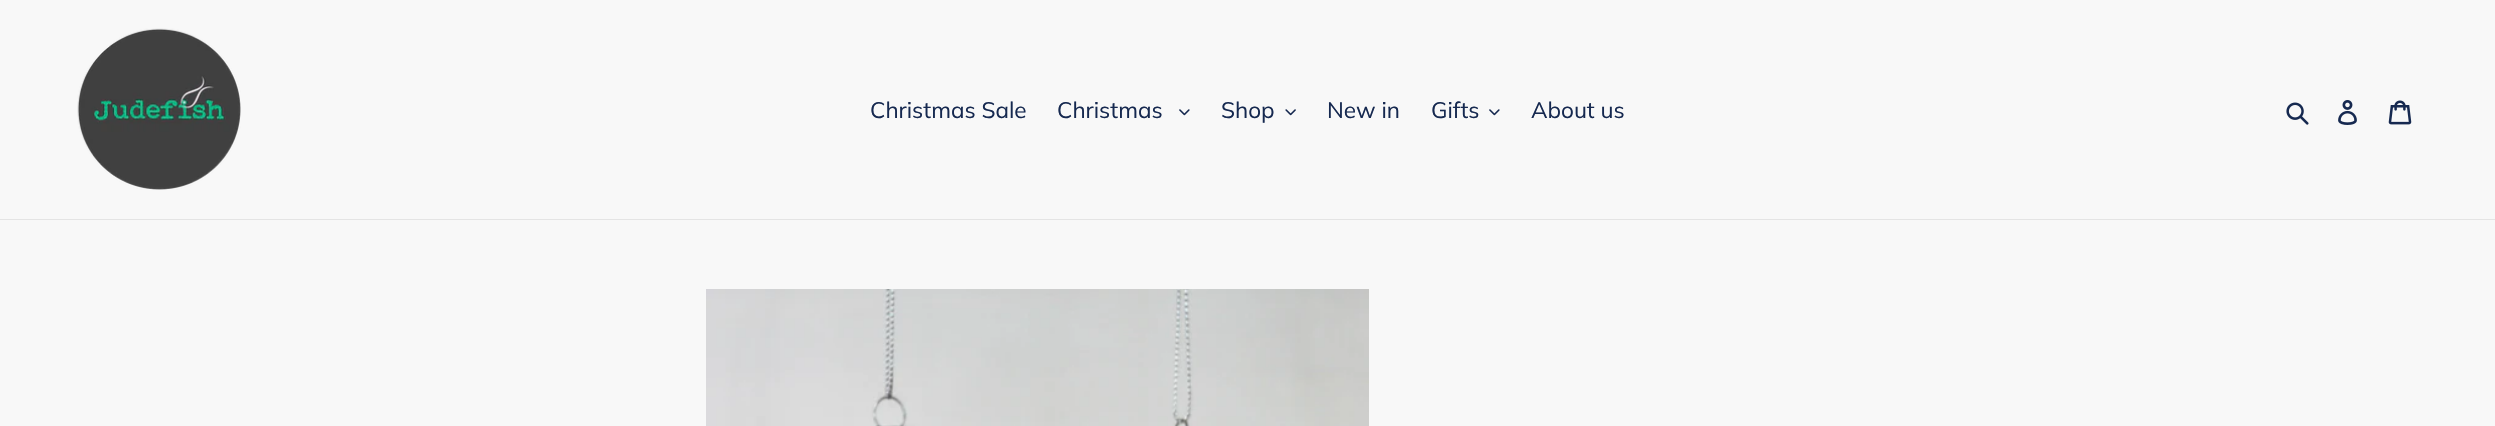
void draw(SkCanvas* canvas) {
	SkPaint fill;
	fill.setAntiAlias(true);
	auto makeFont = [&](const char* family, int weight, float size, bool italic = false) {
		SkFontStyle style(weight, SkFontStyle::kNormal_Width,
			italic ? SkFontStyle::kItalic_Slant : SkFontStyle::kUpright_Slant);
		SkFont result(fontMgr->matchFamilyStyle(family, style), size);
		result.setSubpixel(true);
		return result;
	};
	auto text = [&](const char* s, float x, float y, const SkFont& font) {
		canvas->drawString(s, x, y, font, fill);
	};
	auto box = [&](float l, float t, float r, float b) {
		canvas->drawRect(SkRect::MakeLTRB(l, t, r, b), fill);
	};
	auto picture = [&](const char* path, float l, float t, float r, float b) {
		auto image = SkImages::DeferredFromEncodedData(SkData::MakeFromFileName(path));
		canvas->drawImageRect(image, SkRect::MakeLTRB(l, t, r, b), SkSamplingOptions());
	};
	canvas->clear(0xFFF8F8F8);
	fill.setColor(0xFFE4E4E4);
	box(0, 219, 2495, 220);
	picture("image0.png", 77, 28, 241, 190);
	picture("image1.png", 1179, 109, 1190, 116);
	picture("image2.png", 1285, 109, 1296, 116);
	picture("image1.png", 1489, 109, 1500, 116);
	picture("image3.png", 2286, 102, 2309, 125);
	picture("image4.png", 2338, 100, 2357, 125);
	picture("image5.png", 2388, 100, 2412, 125);
	picture("image6.png", 706, 289, 1369, 426);
	auto font1 = makeFont("Muli", 400, 22.5f);
	fill.setColor(0xFF162950);
	text("Christmas Sale", 870, 118, font1);
	text("Christmas", 1057, 118, font1);
	text("Shop", 1221, 118, font1);
	text("New in", 1327, 118, font1);
	text("Gifts", 1431, 118, font1);
	text("About us", 1531, 118, font1);
}
